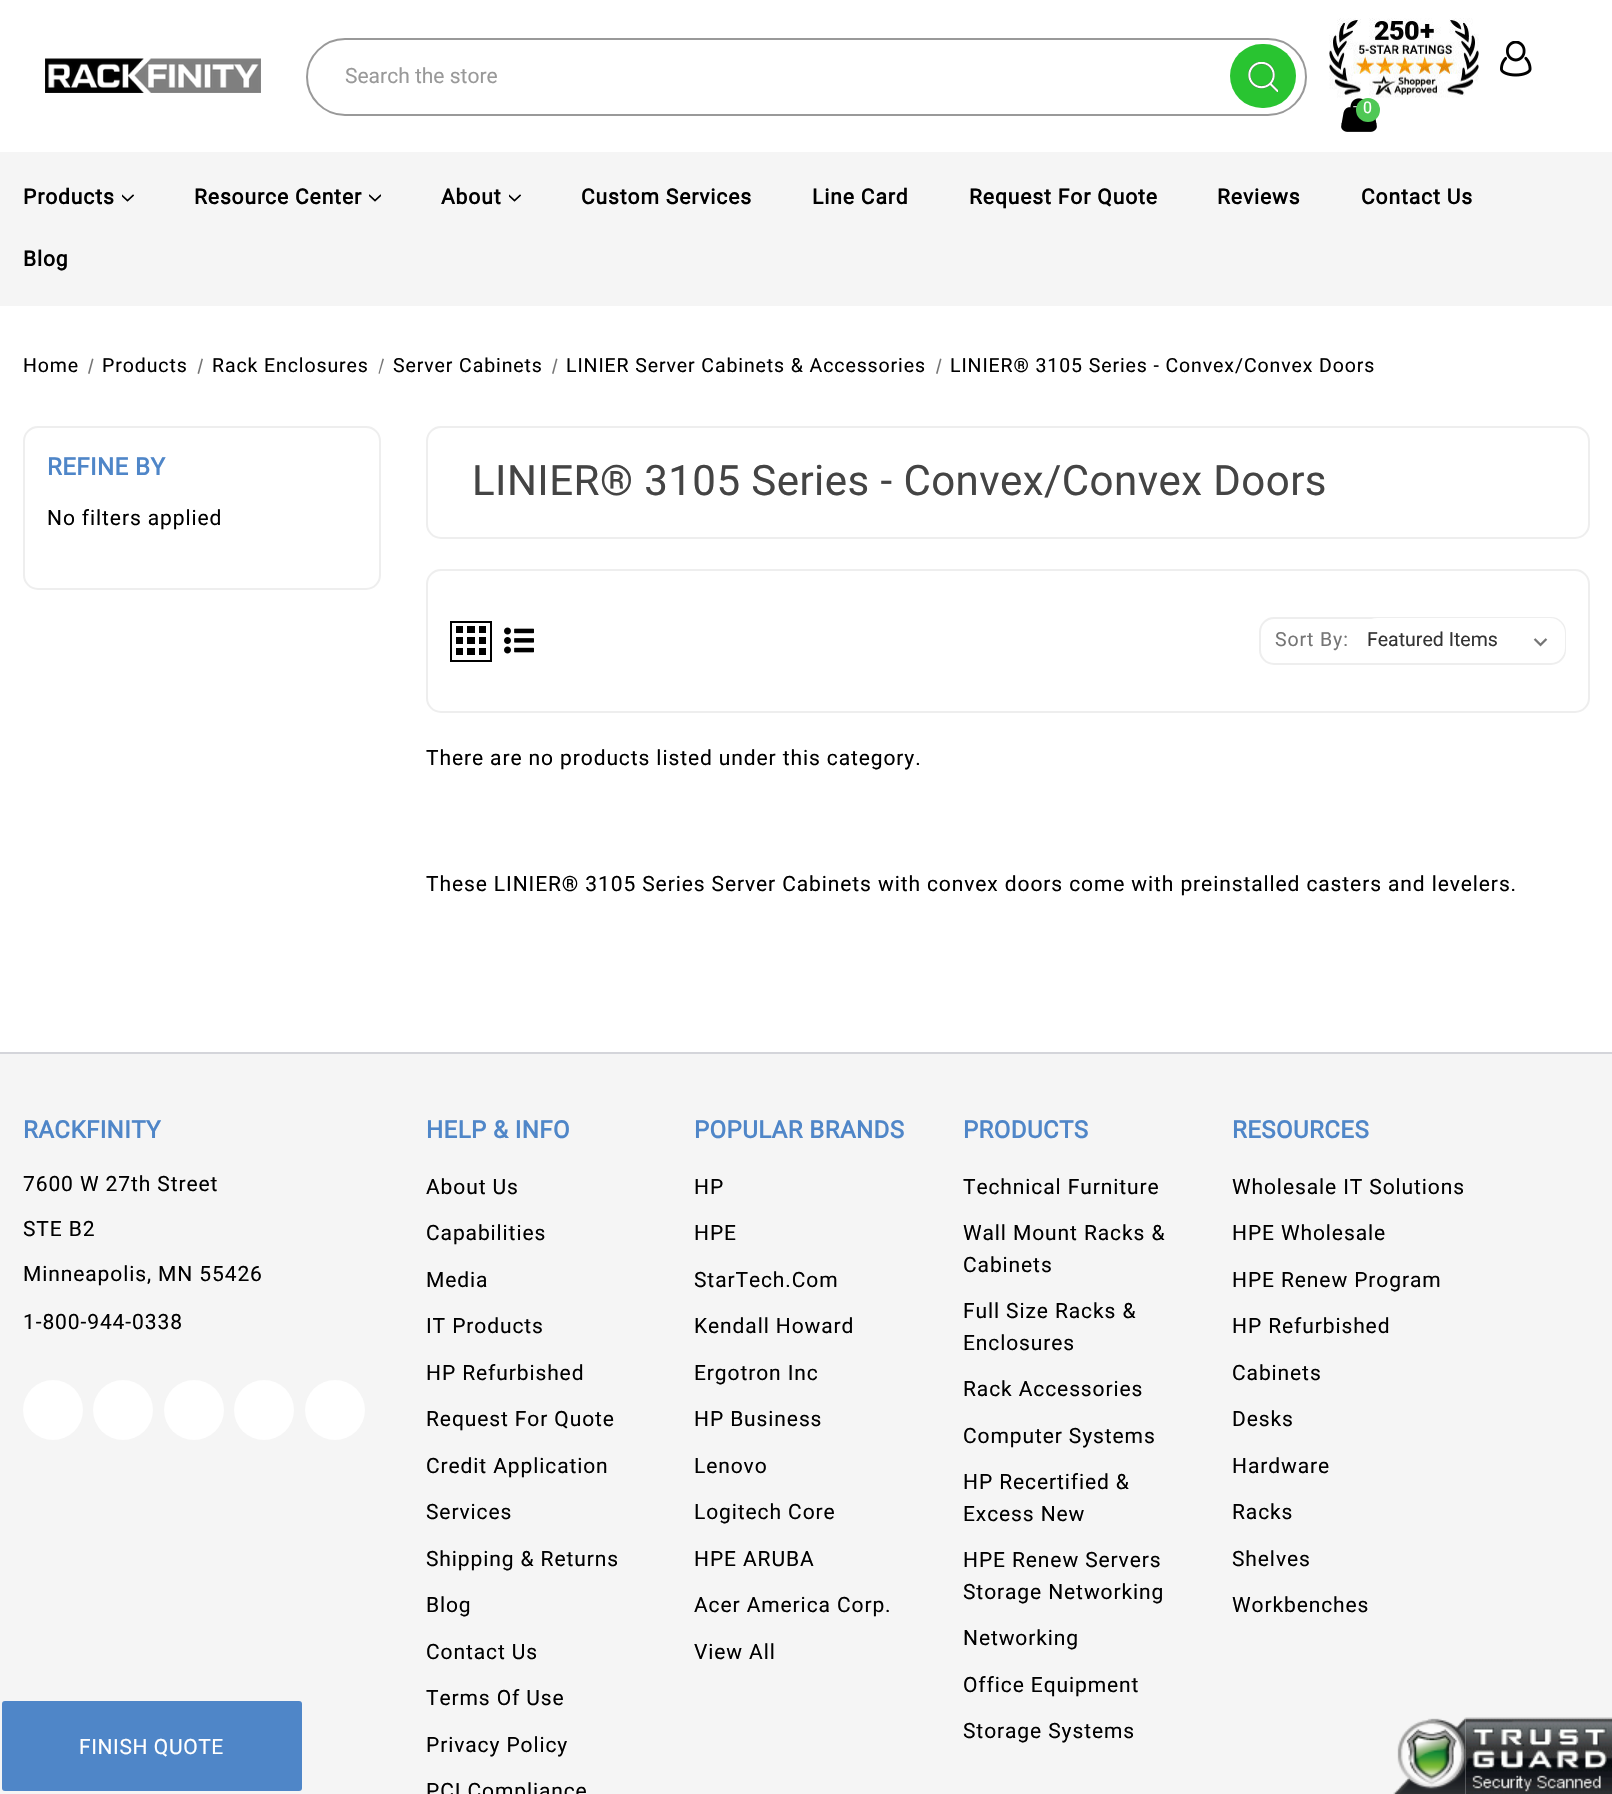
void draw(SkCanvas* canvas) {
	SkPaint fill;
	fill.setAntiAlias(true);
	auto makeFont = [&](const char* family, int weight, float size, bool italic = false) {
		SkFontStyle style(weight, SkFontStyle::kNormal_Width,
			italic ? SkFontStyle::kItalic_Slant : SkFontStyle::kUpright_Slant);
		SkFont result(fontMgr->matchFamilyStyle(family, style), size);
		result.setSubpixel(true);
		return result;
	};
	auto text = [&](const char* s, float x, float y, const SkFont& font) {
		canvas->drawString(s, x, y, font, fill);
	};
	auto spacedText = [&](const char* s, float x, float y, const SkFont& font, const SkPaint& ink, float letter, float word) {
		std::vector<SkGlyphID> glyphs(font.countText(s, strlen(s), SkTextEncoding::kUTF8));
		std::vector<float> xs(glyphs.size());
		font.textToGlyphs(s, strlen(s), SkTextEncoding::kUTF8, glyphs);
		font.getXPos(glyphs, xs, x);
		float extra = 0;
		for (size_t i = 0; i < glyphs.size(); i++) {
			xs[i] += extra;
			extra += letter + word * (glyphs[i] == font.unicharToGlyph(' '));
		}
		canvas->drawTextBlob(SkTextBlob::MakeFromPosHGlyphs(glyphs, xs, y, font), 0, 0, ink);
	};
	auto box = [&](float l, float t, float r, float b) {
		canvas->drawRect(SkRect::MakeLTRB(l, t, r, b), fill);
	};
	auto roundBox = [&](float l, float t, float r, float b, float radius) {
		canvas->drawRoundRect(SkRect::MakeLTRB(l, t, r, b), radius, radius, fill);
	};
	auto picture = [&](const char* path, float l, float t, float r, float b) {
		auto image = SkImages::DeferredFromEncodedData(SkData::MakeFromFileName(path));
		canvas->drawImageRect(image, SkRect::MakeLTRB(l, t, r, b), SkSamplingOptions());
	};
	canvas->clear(0xFFFFFFFF);
	picture("image0.png", 45, 58, 261, 93);
	fill.setStyle(SkPaint::kStroke_Style);
	fill.setStrokeWidth(2);
	fill.setColor(0xFF999999);
	canvas->drawRoundRect(SkRect::MakeLTRB(307, 39, 1306, 115), 38, 38, fill);
	fill.setStyle(SkPaint::kFill_Style);
	fill.setColor(0xFF29C431);
	roundBox(1230, 44, 1296, 108, 32);
	picture("image1.png", 1248, 62, 1278, 92);
	picture("image2.png", 1329, 18, 1479, 98);
	picture("image3.png", 1500, 41, 1532, 77);
	picture("image4.png", 1341, 98, 1377, 132);
	fill.setColor(0xFF4FC855);
	canvas->drawCircle(1368, 110, 12, fill);
	fill.setColor(0xFFF5F5F5);
	box(0, 152, 1612, 306);
	picture("image5.png", 122, 194, 134, 202);
	picture("image6.png", 369, 194, 381, 202);
	picture("image5.png", 509, 194, 521, 202);
	fill.setColor(0xFF757575);
	canvas->drawPath(SkPathBuilder().moveTo(92, 358.5f).lineTo(93.5f, 359).lineTo(89.5f, 374).lineTo(88, 373.5f).close().detach(), fill);
	canvas->drawPath(SkPathBuilder().moveTo(201.5f, 358.5f).lineTo(203, 359).lineTo(199, 374).lineTo(197.5f, 373.5f).close().detach(), fill);
	canvas->drawPath(SkPathBuilder().moveTo(382.5f, 358.5f).lineTo(384, 359).lineTo(379.5f, 374).lineTo(378.5f, 373.5f).close().detach(), fill);
	canvas->drawPath(SkPathBuilder().moveTo(556, 358.5f).lineTo(557.5f, 359).lineTo(553.5f, 374).lineTo(552, 373.5f).close().detach(), fill);
	canvas->drawPath(SkPathBuilder().moveTo(940, 358.5f).lineTo(941.5f, 359).lineTo(937.5f, 374).lineTo(936, 373.5f).close().detach(), fill);
	fill.setStyle(SkPaint::kStroke_Style);
	fill.setColor(0xFFEEEEEE);
	canvas->drawRoundRect(SkRect::MakeLTRB(24, 427, 380, 589), 14, 14, fill);
	canvas->drawRoundRect(SkRect::MakeLTRB(427, 427, 1589, 538), 14, 14, fill);
	canvas->drawRoundRect(SkRect::MakeLTRB(427, 570, 1589, 712), 14, 14, fill);
	fill.setColor(0xFF000000);
	canvas->drawRect(SkRect::MakeLTRB(451, 622, 491, 661), fill);
	picture("image7.png", 456, 626, 486, 655);
	picture("image8.png", 504, 627, 534, 654);
	fill.setColor(0xFFEEEEEE);
	canvas->drawRoundRect(SkRect::MakeLTRB(1260, 618, 1565, 664), 14, 14, fill);
	fill.setStyle(SkPaint::kFill_Style);
	fill.setColor(0xFFFFFFFF);
	roundBox(1362, 618, 1565, 663, 15);
	picture("image9.png", 1533, 638, 1548, 647);
	fill.setColor(0xFFF5F5F5);
	box(0, 1054, 1612, 1794);
	fill.setColor(0xFFD4D5DA);
	box(0, 1052, 1612, 1054);
	fill.setColor(0xFFFFFFFF);
	canvas->drawCircle(53, 1410, 30, fill);
	canvas->drawCircle(123, 1410, 30, fill);
	canvas->drawCircle(194, 1410, 30, fill);
	canvas->drawCircle(264, 1410, 30, fill);
	canvas->drawCircle(335, 1410, 30, fill);
	picture("image10.png", 1393, 1717, 1612, 1794);
	picture("image11.png", 1465, 1718, 1612, 1794);
	fill.setColor(0xFF4F86C8);
	roundBox(2, 1701, 302, 1791, 3);
	auto font1 = makeFont("Roboto", 400, 21);
	fill.setColor(0xFF999999);
	text("Search the store", 345, 83, font1);
	auto font2 = makeFont("Roboto", 400, 16);
	fill.setColor(0xFFFFFFFF);
	text("0", 1363, 113, font2);
	auto font3 = makeFont("Roboto", 700, 21);
	fill.setColor(0xFF000000);
	spacedText("Products", 23, 204, font3, fill, 0.9f, 0);
	spacedText("Resource Center", 194, 204, font3, fill, 0.9f, 0);
	spacedText("About", 441, 204, font3, fill, 0.9f, 0);
	spacedText("Custom Services", 581, 204, font3, fill, 0.9f, 0);
	spacedText("Line Card", 812, 204, font3, fill, 0.9f, 0);
	spacedText("Request For Quote", 969, 204, font3, fill, 0.9f, 0);
	spacedText("Reviews", 1217, 204, font3, fill, 0.9f, 0);
	spacedText("Contact Us", 1361, 204, font3, fill, 0.9f, 0);
	spacedText("Blog", 23, 266, font3, fill, 0.9f, 0);
	auto font4 = makeFont("Roboto", 400, 19.5f);
	spacedText("Home", 23, 372, font4, fill, 0.9f, 0);
	spacedText("Products", 102, 372, font4, fill, 0.9f, 0);
	spacedText("Rack Enclosures", 212, 372, font4, fill, 0.9f, 0);
	spacedText("Server Cabinets", 393, 372, font4, fill, 0.9f, 0);
	spacedText("LINIER Server Cabinets & Accessories", 566, 372, font4, fill, 0.9f, 0);
	spacedText("LINIER® 3105 Series - Convex/Convex Doors", 950, 372, font4, fill, 0.9f, 0);
	auto font5 = makeFont("Roboto", 700, 24);
	fill.setColor(0xFF4F86C8);
	spacedText("REFINE BY", 47, 475, font5, fill, 0.45f, 0);
	fill.setColor(0xFF000000);
	spacedText("No filters applied", 47, 525, font1, fill, 0.9f, 0);
	auto font6 = makeFont("Roboto", 400, 42);
	fill.setColor(0xFF444444);
	spacedText("LINIER® 3105 Series - Convex/Convex Doors", 472, 495, font6, fill, 0.45f, 0);
	fill.setColor(0xFF757575);
	spacedText("Sort By:", 1275, 646, font4, fill, 0.9f, 0);
	fill.setColor(0xFF333333);
	text("Featured Items", 1367, 646, font4);
	fill.setColor(0xFF000000);
	spacedText("There are no products listed under this category.", 426, 765, font1, fill, 0.9f, 0);
	spacedText("These LINIER® 3105 Series Server Cabinets with convex doors come with preinstalled casters and levelers.", 426, 891, font1, fill, 0.9f, 0);
	fill.setColor(0xFF4F86C8);
	spacedText("RACKFINITY", 23, 1138, font5, fill, 0.45f, 0);
	fill.setColor(0xFF000000);
	spacedText("7600 W 27th Street", 23, 1191, font1, fill, 0.9f, 0);
	spacedText("STE B2", 23, 1236, font1, fill, 0.9f, 0);
	spacedText("Minneapolis, MN 55426", 23, 1281, font1, fill, 0.9f, 0);
	spacedText("1-800-944-0338", 23, 1329, font1, fill, 0.9f, 0);
	fill.setColor(0xFF4F86C8);
	spacedText("HELP & INFO", 426, 1138, font5, fill, 0.45f, 0);
	fill.setColor(0xFF000000);
	spacedText("About Us", 426, 1194, font1, fill, 0.9f, 0);
	spacedText("Capabilities", 426, 1240, font1, fill, 0.9f, 0);
	spacedText("Media", 426, 1287, font1, fill, 0.9f, 0);
	spacedText("IT Products", 426, 1333, font1, fill, 0.9f, 0);
	spacedText("HP Refurbished", 426, 1380, font1, fill, 0.9f, 0);
	spacedText("Request For Quote", 426, 1426, font1, fill, 0.9f, 0);
	spacedText("Credit Application", 426, 1473, font1, fill, 0.9f, 0);
	spacedText("Services", 426, 1519, font1, fill, 0.9f, 0);
	spacedText("Shipping & Returns", 426, 1566, font1, fill, 0.9f, 0);
	spacedText("Blog", 426, 1612, font1, fill, 0.9f, 0);
	spacedText("Contact Us", 426, 1659, font1, fill, 0.9f, 0);
	spacedText("Terms Of Use", 426, 1705, font1, fill, 0.9f, 0);
	spacedText("Privacy Policy", 426, 1752, font1, fill, 0.9f, 0);
	spacedText("PCI Compliance", 426, 1798, font1, fill, 0.9f, 0);
	fill.setColor(0xFF4F86C8);
	spacedText("POPULAR BRANDS", 694, 1138, font5, fill, 0.45f, 0);
	fill.setColor(0xFF000000);
	spacedText("HP", 694, 1194, font1, fill, 0.9f, 0);
	spacedText("HPE", 694, 1240, font1, fill, 0.9f, 0);
	spacedText("StarTech.Com", 694, 1287, font1, fill, 0.9f, 0);
	spacedText("Kendall Howard", 694, 1333, font1, fill, 0.9f, 0);
	spacedText("Ergotron Inc", 694, 1380, font1, fill, 0.9f, 0);
	spacedText("HP Business", 694, 1426, font1, fill, 0.9f, 0);
	spacedText("Lenovo", 694, 1473, font1, fill, 0.9f, 0);
	spacedText("Logitech Core", 694, 1519, font1, fill, 0.9f, 0);
	spacedText("HPE ARUBA", 694, 1566, font1, fill, 0.9f, 0);
	spacedText("Acer America Corp.", 694, 1612, font1, fill, 0.9f, 0);
	spacedText("View All", 694, 1659, font1, fill, 0.9f, 0);
	fill.setColor(0xFF4F86C8);
	spacedText("PRODUCTS", 963, 1138, font5, fill, 0.45f, 0);
	fill.setColor(0xFF000000);
	spacedText("Technical Furniture", 963, 1194, font1, fill, 0.9f, 0);
	spacedText("Wall Mount Racks &", 963, 1240, font1, fill, 0.9f, 0);
	spacedText("Cabinets", 963, 1272, font1, fill, 0.9f, 0);
	spacedText("Full Size Racks &", 963, 1318, font1, fill, 0.9f, 0);
	spacedText("Enclosures", 963, 1350, font1, fill, 0.9f, 0);
	spacedText("Rack Accessories", 963, 1396, font1, fill, 0.9f, 0);
	spacedText("Computer Systems", 963, 1443, font1, fill, 0.9f, 0);
	spacedText("HP Recertified &", 963, 1489, font1, fill, 0.9f, 0);
	spacedText("Excess New", 963, 1521, font1, fill, 0.9f, 0);
	spacedText("HPE Renew Servers", 963, 1567, font1, fill, 0.9f, 0);
	spacedText("Storage Networking", 963, 1599, font1, fill, 0.9f, 0);
	spacedText("Networking", 963, 1645, font1, fill, 0.9f, 0);
	spacedText("Office Equipment", 963, 1692, font1, fill, 0.9f, 0);
	spacedText("Storage Systems", 963, 1738, font1, fill, 0.9f, 0);
	fill.setColor(0xFF4F86C8);
	spacedText("RESOURCES", 1232, 1138, font5, fill, 0.45f, 0);
	fill.setColor(0xFF000000);
	spacedText("Wholesale IT Solutions", 1232, 1194, font1, fill, 0.9f, 0);
	spacedText("HPE Wholesale", 1232, 1240, font1, fill, 0.9f, 0);
	spacedText("HPE Renew Program", 1232, 1287, font1, fill, 0.9f, 0);
	spacedText("HP Refurbished", 1232, 1333, font1, fill, 0.9f, 0);
	spacedText("Cabinets", 1232, 1380, font1, fill, 0.9f, 0);
	spacedText("Desks", 1232, 1426, font1, fill, 0.9f, 0);
	spacedText("Hardware", 1232, 1473, font1, fill, 0.9f, 0);
	spacedText("Racks", 1232, 1519, font1, fill, 0.9f, 0);
	spacedText("Shelves", 1232, 1566, font1, fill, 0.9f, 0);
	spacedText("Workbenches", 1232, 1612, font1, fill, 0.9f, 0);
	fill.setColor(0xFFFFFFFF);
	spacedText("FINISH QUOTE", 79, 1754, font1, fill, 0.6f, 0);
}
